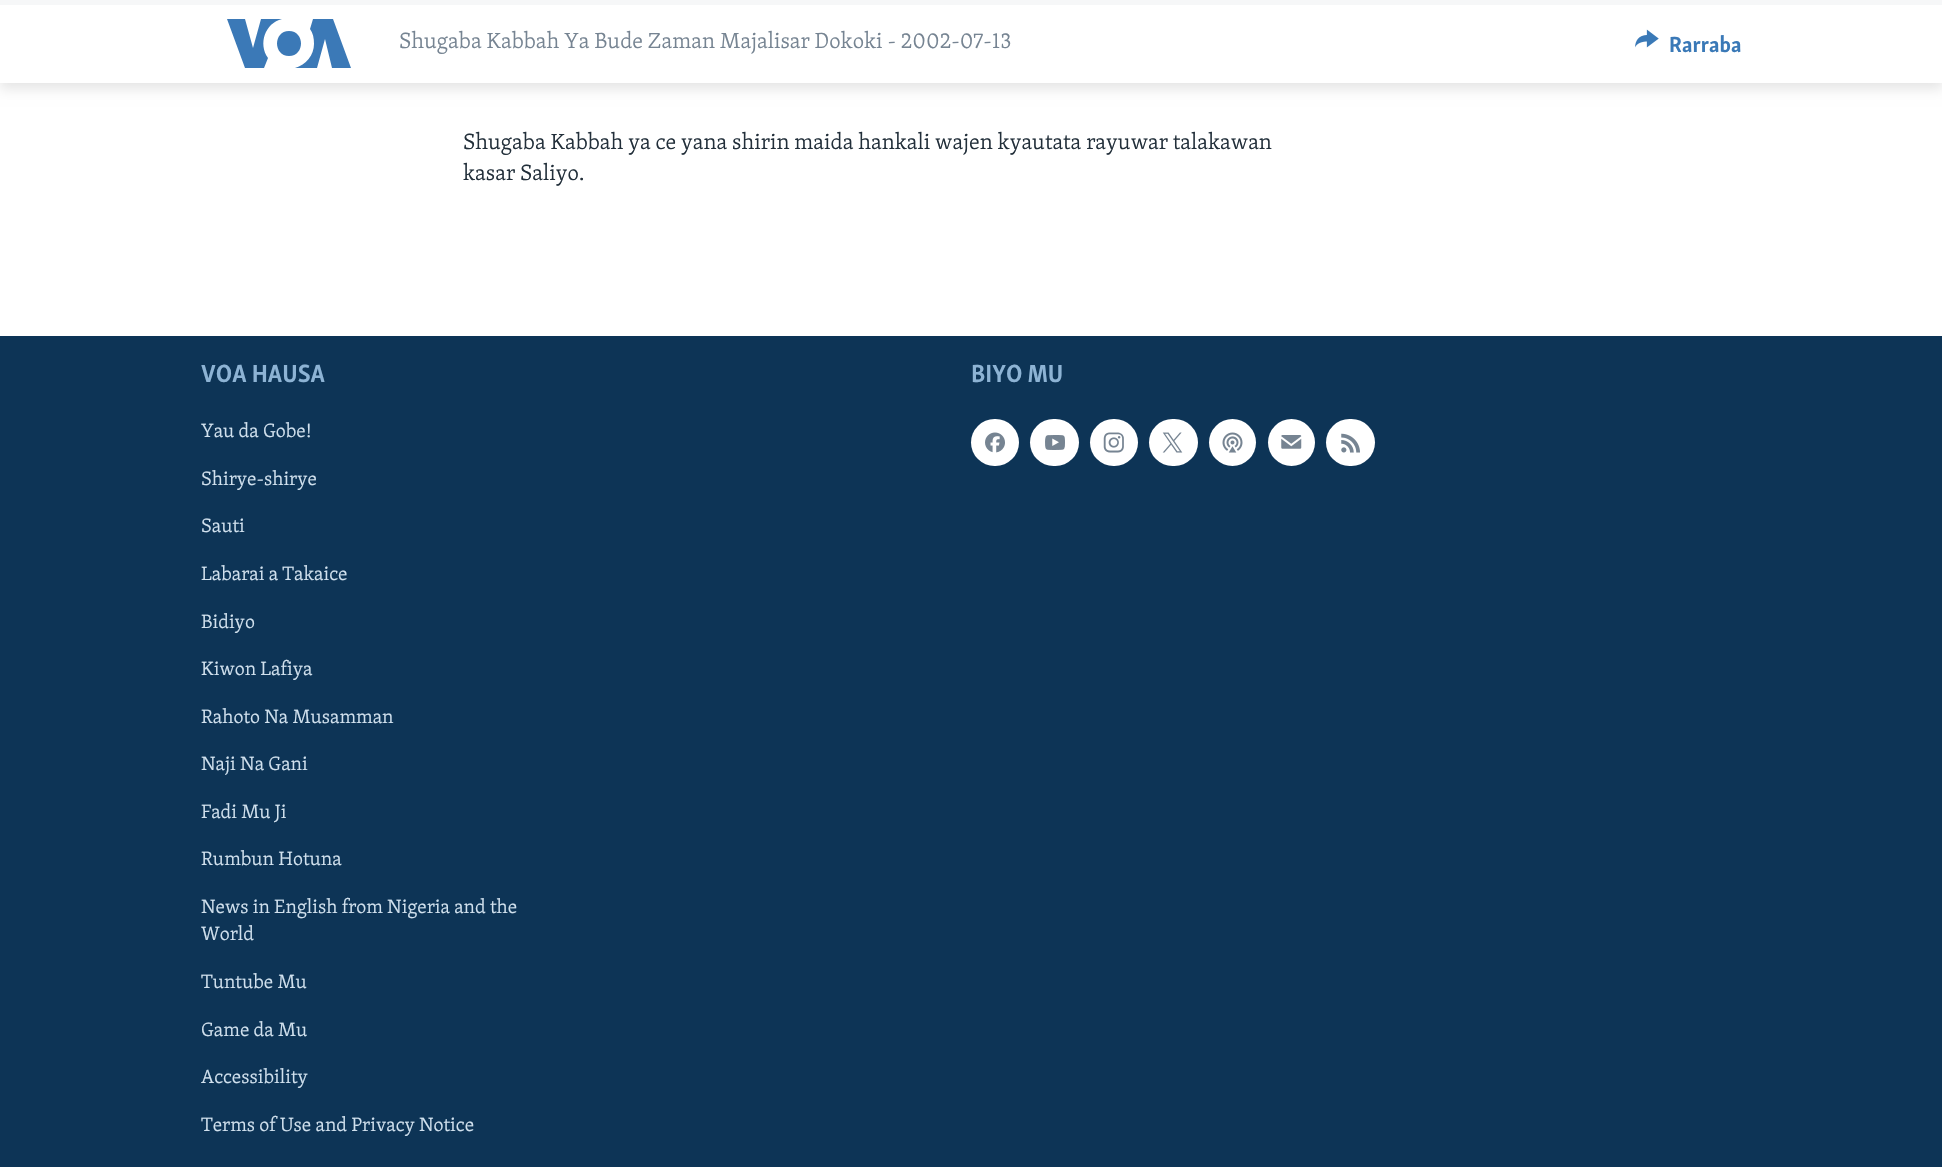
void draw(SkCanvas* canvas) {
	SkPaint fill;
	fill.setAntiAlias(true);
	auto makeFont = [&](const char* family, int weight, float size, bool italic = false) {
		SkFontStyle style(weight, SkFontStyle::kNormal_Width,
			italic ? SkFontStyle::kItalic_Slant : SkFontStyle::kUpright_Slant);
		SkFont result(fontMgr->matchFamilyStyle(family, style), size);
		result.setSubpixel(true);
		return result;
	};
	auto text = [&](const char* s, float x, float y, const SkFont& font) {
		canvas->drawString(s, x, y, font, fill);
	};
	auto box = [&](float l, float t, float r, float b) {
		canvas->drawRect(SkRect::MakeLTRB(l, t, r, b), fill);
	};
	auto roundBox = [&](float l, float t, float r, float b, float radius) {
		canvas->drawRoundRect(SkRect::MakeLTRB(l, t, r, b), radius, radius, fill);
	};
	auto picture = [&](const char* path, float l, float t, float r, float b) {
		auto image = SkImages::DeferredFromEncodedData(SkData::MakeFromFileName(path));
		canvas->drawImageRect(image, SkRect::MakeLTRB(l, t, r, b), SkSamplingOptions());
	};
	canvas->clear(0xFFFFFFFF);
	fill.setColor(0x1A000000);
	fill.setMaskFilter(SkMaskFilter::MakeBlur(kNormal_SkBlurStyle, 6));
	canvas->drawRect(SkRect::MakeLTRB(0, 6, 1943, 89), fill);
	fill.setMaskFilter(nullptr);
	fill.setColor(0xFFFFFFFF);
	box(0, 5, 1942, 83);
	fill.setColor(0xFFF6F7F8);
	box(0, 0, 1942, 5);
	fill.setColor(0xFF3B79B7);
	canvas->drawPath(SkPathBuilder().moveTo(268, 58).lineTo(264, 68).lineTo(245, 68).lineTo(227, 19).lineTo(245, 19).lineTo(253, 48).lineTo(261, 19).lineTo(282, 19).cubicTo(265, 23, 258, 44, 268, 58).close().moveTo(289, 31).cubicTo(273, 31, 273, 56, 289, 56).cubicTo(305, 56, 305, 31, 289, 31).close().moveTo(314, 44).cubicTo(314, 55, 306, 65, 295, 68).lineTo(317, 68).lineTo(325, 39).lineTo(332, 68).lineTo(351, 68).lineTo(333, 19).lineTo(313, 19).lineTo(310, 29).cubicTo(313, 33, 314, 38, 314, 44).close().detach(), fill);
	picture("image0.png", 1635, 29, 1659, 48);
	fill.setColor(0xFF0D3456);
	box(0, 336, 1942, 1167);
	fill.setColor(0xFFFFFFFF);
	roundBox(971, 419, 1019, 466, 23.5f);
	picture("image1.png", 985, 432, 1005, 453);
	roundBox(1030, 419, 1079, 466, 23.5f);
	picture("image2.png", 1045, 435, 1065, 450);
	roundBox(1090, 419, 1138, 466, 23.5f);
	picture("image3.png", 1103, 432, 1124, 453);
	roundBox(1149, 419, 1198, 466, 23.5f);
	picture("image4.png", 1162, 432, 1183, 453);
	canvas->drawCircle(1232.5f, 442.5f, 23.5f, fill);
	picture("image5.png", 1222, 432, 1243, 453);
	canvas->drawCircle(1291.5f, 442.5f, 23.5f, fill);
	picture("image6.png", 1281, 435, 1302, 449);
	roundBox(1326, 419, 1375, 466, 23.5f);
	picture("image7.png", 1341, 433, 1360, 453);
	auto font1 = makeFont("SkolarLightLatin", 300, 22.5f);
	fill.setColor(0xFF768492);
	text("Shugaba Kabbah Ya Bude Zaman Majalisar Dokoki - 2002-07-13", 399, 48, font1);
	auto font2 = makeFont("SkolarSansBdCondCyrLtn", 700, 22.5f);
	fill.setColor(0xFF3A79B7);
	text("Rarraba", 1669, 52, font2);
	fill.setColor(0xFF222F3A);
	text("Shugaba Kabbah ya ce yana shirin maida hankali wajen kyautata rayuwar talakawan", 463, 149, font1);
	text("kasar Saliyo.", 463, 180, font1);
	auto font3 = makeFont("SkolarSansBdCondCyrLtn", 700, 25.5f);
	fill.setColor(0xFF8DB3D4);
	text("VOA HAUSA", 201, 382, font3);
	auto font4 = makeFont("SkolarLightLatin", 300, 19.75f);
	fill.setColor(0xFFD1E1EE);
	text("Yau da Gobe!", 201, 437, font4);
	text("Shirye-shirye", 201, 485, font4);
	text("Sauti", 201, 532, font4);
	text("Labarai a Takaice", 201, 580, font4);
	text("Bidiyo", 201, 628, font4);
	text("Kiwon Lafiya", 201, 675, font4);
	text("Rahoto Na Musamman", 201, 723, font4);
	text("Naji Na Gani", 201, 770, font4);
	text("Fadi Mu Ji", 201, 818, font4);
	text("Rumbun Hotuna", 201, 865, font4);
	text("News in English from Nigeria and the", 201, 913, font4);
	text("World", 201, 940, font4);
	text("Tuntube Mu", 201, 988, font4);
	text("Game da Mu", 201, 1036, font4);
	text("Accessibility", 201, 1083, font4);
	text("Terms of Use and Privacy Notice", 201, 1131, font4);
	fill.setColor(0xFF8DB3D4);
	text("BIYO MU", 971, 382, font3);
}
